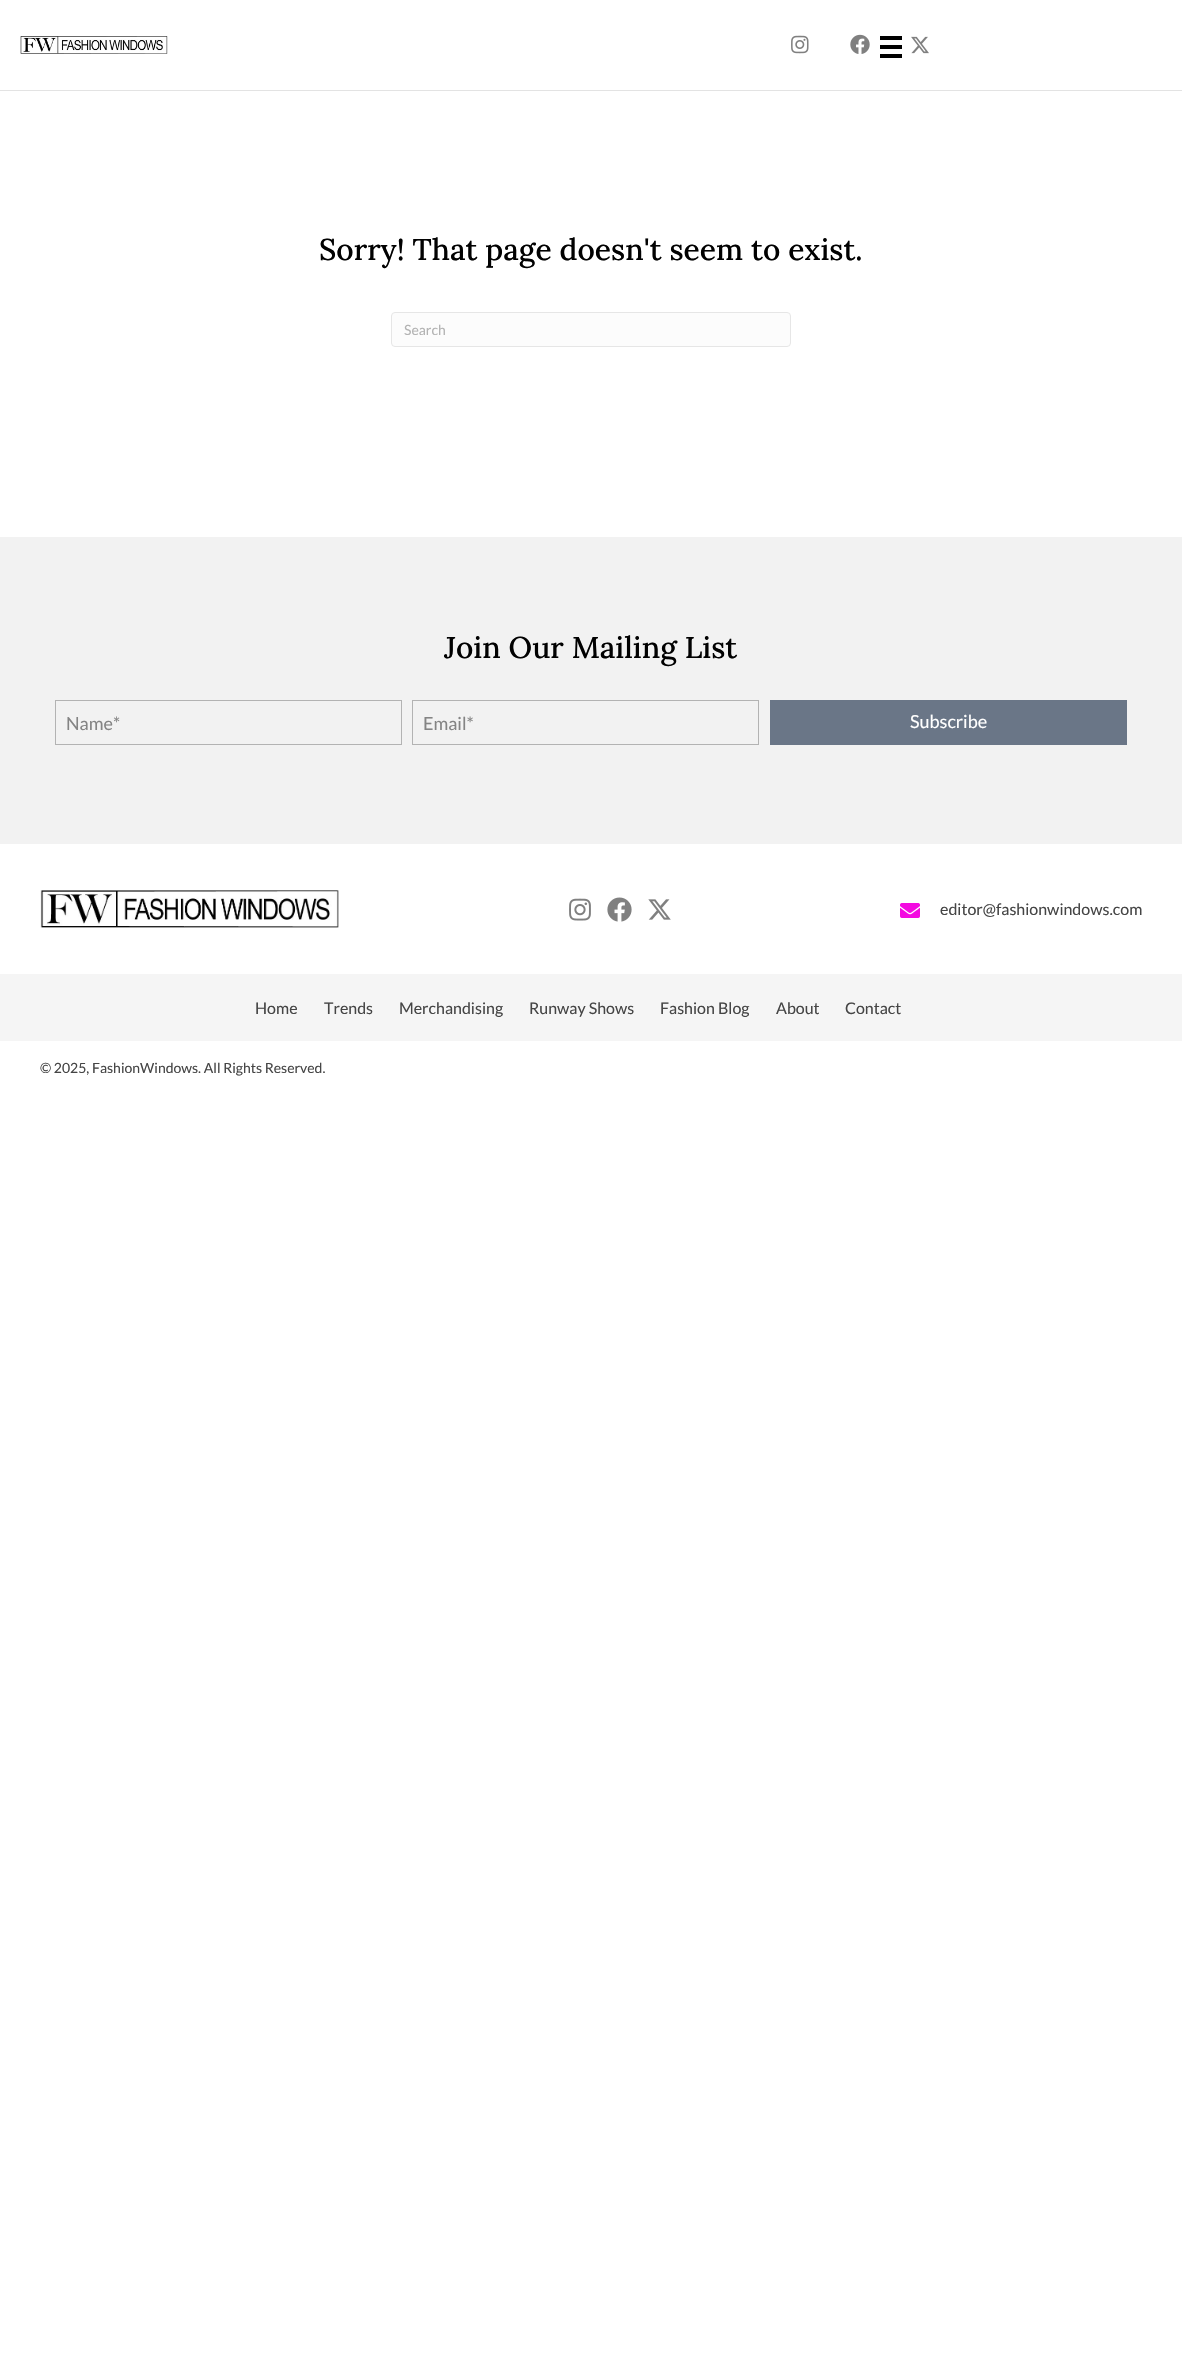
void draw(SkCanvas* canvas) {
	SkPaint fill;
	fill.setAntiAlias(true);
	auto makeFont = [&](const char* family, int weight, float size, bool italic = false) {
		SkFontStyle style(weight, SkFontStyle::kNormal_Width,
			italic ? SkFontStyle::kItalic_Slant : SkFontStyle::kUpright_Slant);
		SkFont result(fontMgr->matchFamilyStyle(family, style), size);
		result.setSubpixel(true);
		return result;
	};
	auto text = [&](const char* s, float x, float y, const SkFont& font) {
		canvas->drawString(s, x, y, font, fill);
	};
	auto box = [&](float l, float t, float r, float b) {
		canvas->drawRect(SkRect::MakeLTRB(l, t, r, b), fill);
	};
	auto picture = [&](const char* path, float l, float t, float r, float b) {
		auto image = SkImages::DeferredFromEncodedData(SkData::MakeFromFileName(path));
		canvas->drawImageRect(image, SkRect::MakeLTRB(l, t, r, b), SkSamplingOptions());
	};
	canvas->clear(0xFFFFFFFF);
	fill.setColor(0xFFE3E3E3);
	box(0, 90, 1182, 91);
	picture("image0.png", 20, 36, 168, 54);
	picture("image1.png", 791, 35, 809, 54);
	picture("image2.png", 850, 34, 870, 54);
	picture("image3.png", 911, 36, 929, 54);
	fill.setColor(0xFF000000);
	box(880, 36, 902, 40);
	box(880, 45, 902, 49);
	box(880, 54, 902, 58);
	fill.setColor(0xFFFCFCFC);
	canvas->drawRoundRect(SkRect::MakeLTRB(391.5f, 312.5f, 790.5f, 346.5f), 3.5f, 3.5f, fill);
	fill.setStyle(SkPaint::kStroke_Style);
	fill.setStrokeWidth(1);
	fill.setColor(0xFFE6E6E6);
	canvas->drawRoundRect(SkRect::MakeLTRB(391.5f, 312.5f, 790.5f, 346.5f), 3.5f, 3.5f, fill);
	fill.setStyle(SkPaint::kFill_Style);
	fill.setColor(0xFFF2F2F2);
	box(0, 537, 1182, 844);
	fill.setStyle(SkPaint::kStroke_Style);
	fill.setColor(0xFFB3B3B3);
	canvas->drawRect(SkRect::MakeLTRB(55.5f, 700.5f, 401.5f, 744.5f), fill);
	canvas->drawRect(SkRect::MakeLTRB(412.5f, 700.5f, 758.5f, 744.5f), fill);
	fill.setStyle(SkPaint::kFill_Style);
	fill.setColor(0xFF6A7687);
	box(770, 700, 1127, 745);
	picture("image4.png", 40, 890, 339, 928);
	picture("image5.png", 569, 898, 591, 921);
	picture("image6.png", 607, 897, 632, 922);
	picture("image7.png", 648, 899, 671, 920);
	picture("image8.png", 900, 903, 920, 918);
	fill.setColor(0xFFF5F5F5);
	box(0, 974, 1182, 1041);
	auto font1 = makeFont("Lora", 500, 30);
	fill.setColor(0xFF010101);
	text("Sorry! That page doesn't seem to exist.", 319, 260, font1);
	auto font2 = makeFont("Lato", 400, 14);
	fill.setColor(0xFFB3B3B3);
	text("Search", 404, 335, font2);
	fill.setColor(0xFF010101);
	text("Join Our Mailing List", 444, 658, font1);
	auto font3 = makeFont("Lato", 400, 18);
	fill.setColor(0xFF848484);
	text("Name*", 66, 730, font3);
	text("Email*", 423, 730, font3);
	fill.setColor(0xFFFFFFFF);
	text("Subscribe", 910, 728, font3);
	auto font4 = makeFont("Lato", 400, 16);
	fill.setColor(0xFF454545);
	text("editor@fashionwindows.com", 940, 915, font4);
	text("Home", 255, 1014, font4);
	text("Trends", 324, 1014, font4);
	text("Merchandising", 399, 1014, font4);
	text("Runway Shows", 529, 1014, font4);
	text("Fashion Blog", 660, 1014, font4);
	text("About", 776, 1014, font4);
	text("Contact", 845, 1014, font4);
	text("© 2025, FashionWindows. All Rights Reserved.", 40, 1073, font2);
}
